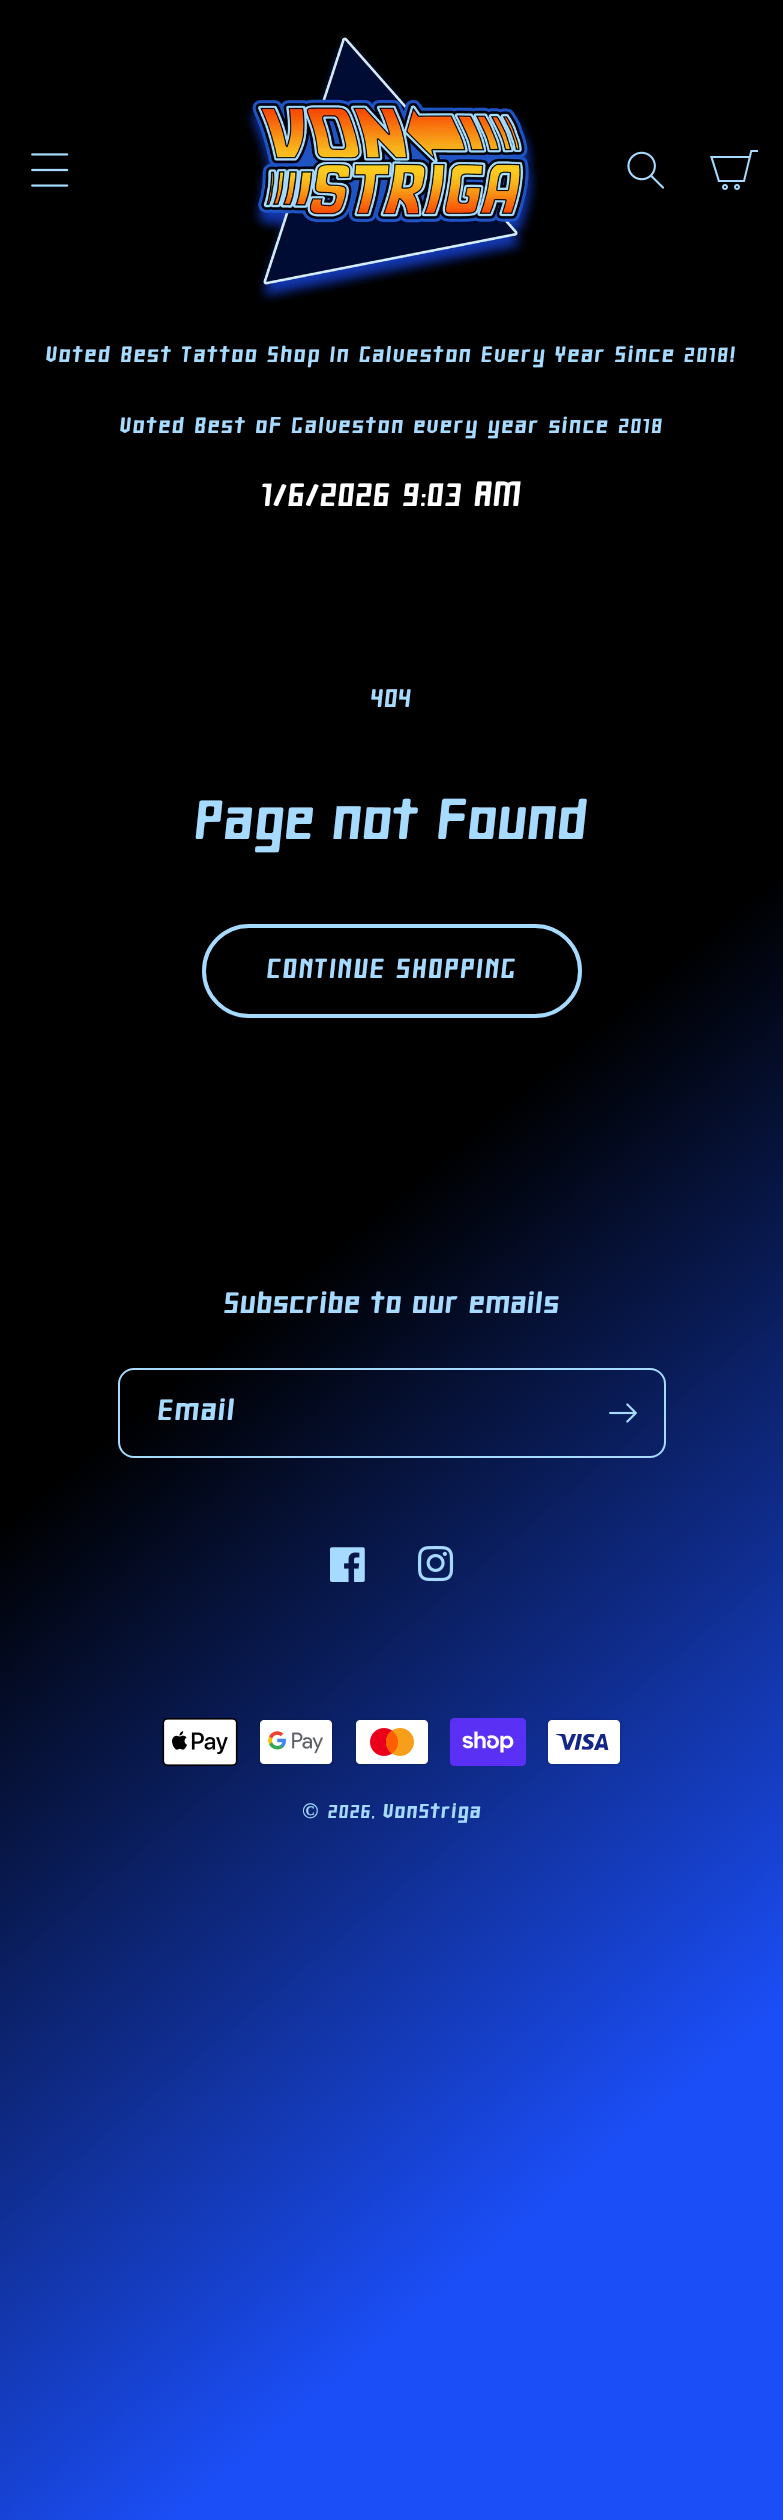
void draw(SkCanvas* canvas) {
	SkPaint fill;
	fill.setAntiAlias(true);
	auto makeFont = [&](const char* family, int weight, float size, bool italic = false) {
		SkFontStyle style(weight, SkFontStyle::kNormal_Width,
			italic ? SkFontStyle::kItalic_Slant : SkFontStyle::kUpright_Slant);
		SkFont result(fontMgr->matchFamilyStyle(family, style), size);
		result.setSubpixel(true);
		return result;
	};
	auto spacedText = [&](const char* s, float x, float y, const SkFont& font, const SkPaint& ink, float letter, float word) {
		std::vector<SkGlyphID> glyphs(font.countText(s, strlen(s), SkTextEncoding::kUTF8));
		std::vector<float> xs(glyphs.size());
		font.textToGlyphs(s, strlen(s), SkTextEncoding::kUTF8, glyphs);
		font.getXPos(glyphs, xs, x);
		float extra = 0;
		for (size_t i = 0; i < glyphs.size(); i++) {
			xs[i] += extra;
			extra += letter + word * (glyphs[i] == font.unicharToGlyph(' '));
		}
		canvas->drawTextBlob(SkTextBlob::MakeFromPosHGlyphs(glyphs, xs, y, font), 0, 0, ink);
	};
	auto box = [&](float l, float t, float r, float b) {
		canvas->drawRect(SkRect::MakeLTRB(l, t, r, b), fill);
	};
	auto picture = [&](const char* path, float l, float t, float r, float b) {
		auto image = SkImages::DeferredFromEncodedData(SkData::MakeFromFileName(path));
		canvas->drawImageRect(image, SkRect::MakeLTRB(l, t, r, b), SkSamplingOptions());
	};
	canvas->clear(0xFFFFFFFF);
	{
		const SkColor colors[] = {0xFF1B4EF7, 0xFF000000, 0xFF000000};
		const float stops[] = {0.16f, 0.52f, 0.87f};
		const SkPoint ends[] = {{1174, 2192}, {-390, 328}};
		fill.setShader(SkGradientShader::MakeLinear(ends, colors, stops, 3, SkTileMode::kClamp));
		fill.setAlpha(255);
	}
	box(0, 0, 783, 2520);
	picture("image0.png", 31, 153, 69, 187);
	picture("image1.png", 245, 37, 539, 303);
	picture("image2.png", 627, 151, 664, 189);
	picture("image3.png", 710, 150, 758, 190);
	fill.setStyle(SkPaint::kStroke_Style);
	fill.setStrokeWidth(4);
	fill.setShader(nullptr);
	fill.setColor(0xFFA6DAFE);
	canvas->drawRoundRect(SkRect::MakeLTRB(204, 926, 580, 1016), 45, 45, fill);
	fill.setStrokeWidth(2);
	canvas->drawRoundRect(SkRect::MakeLTRB(119, 1369, 665, 1457), 15, 15, fill);
	picture("image4.png", 609, 1403, 637, 1423);
	picture("image5.png", 330, 1547, 365, 1582);
	picture("image6.png", 418, 1546, 454, 1582);
	picture("image7.png", 162, 1718, 238, 1766);
	picture("image8.png", 258, 1718, 334, 1766);
	picture("image9.png", 354, 1718, 430, 1766);
	picture("image10.png", 450, 1718, 526, 1766);
	picture("image11.png", 546, 1718, 622, 1766);
	auto font1 = makeFont("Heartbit", 700, 24);
	fill.setStyle(SkPaint::kFill_Style);
	spacedText("Voted Best Tattoo Shop In Galveston Every Year Since 2018!", 46, 362, font1, fill, 2, 0);
	spacedText("Voted Best of Galveston every year since 2018", 120, 433, font1, fill, 2, 0);
	auto font2 = makeFont("Heartbit", 700, 38);
	fill.setColor(0xFFFFFFFF);
	spacedText("1/6/2026 9:03 AM", 262, 506, font2, fill, 1.2f, 0);
	auto font3 = makeFont("Heartbit", 700, 30);
	fill.setColor(0xFFA6DAFE);
	spacedText("404", 371, 707, font3, fill, 1.2f, 0);
	auto font4 = makeFont("Heartbit", 700, 60);
	spacedText("Page not found", 195, 839, font4, fill, 1.2f, 0);
	spacedText("CONTINUE SHOPPING", 267, 978, font3, fill, 2, 0);
	auto font5 = makeFont("Heartbit", 700, 32);
	spacedText("Subscribe to our emails", 224, 1313, font5, fill, 1.2f, 0);
	spacedText("Email", 158, 1420, font5, fill, 2, 0);
	auto font6 = makeFont("Liberation Serif", 700, 22);
	spacedText("©", 302, 1818, font6, fill, 1.4f, 0);
	auto font7 = makeFont("Heartbit", 700, 22);
	spacedText("2026, VonStriga", 328, 1818, font7, fill, 1.4f, 0);
}
